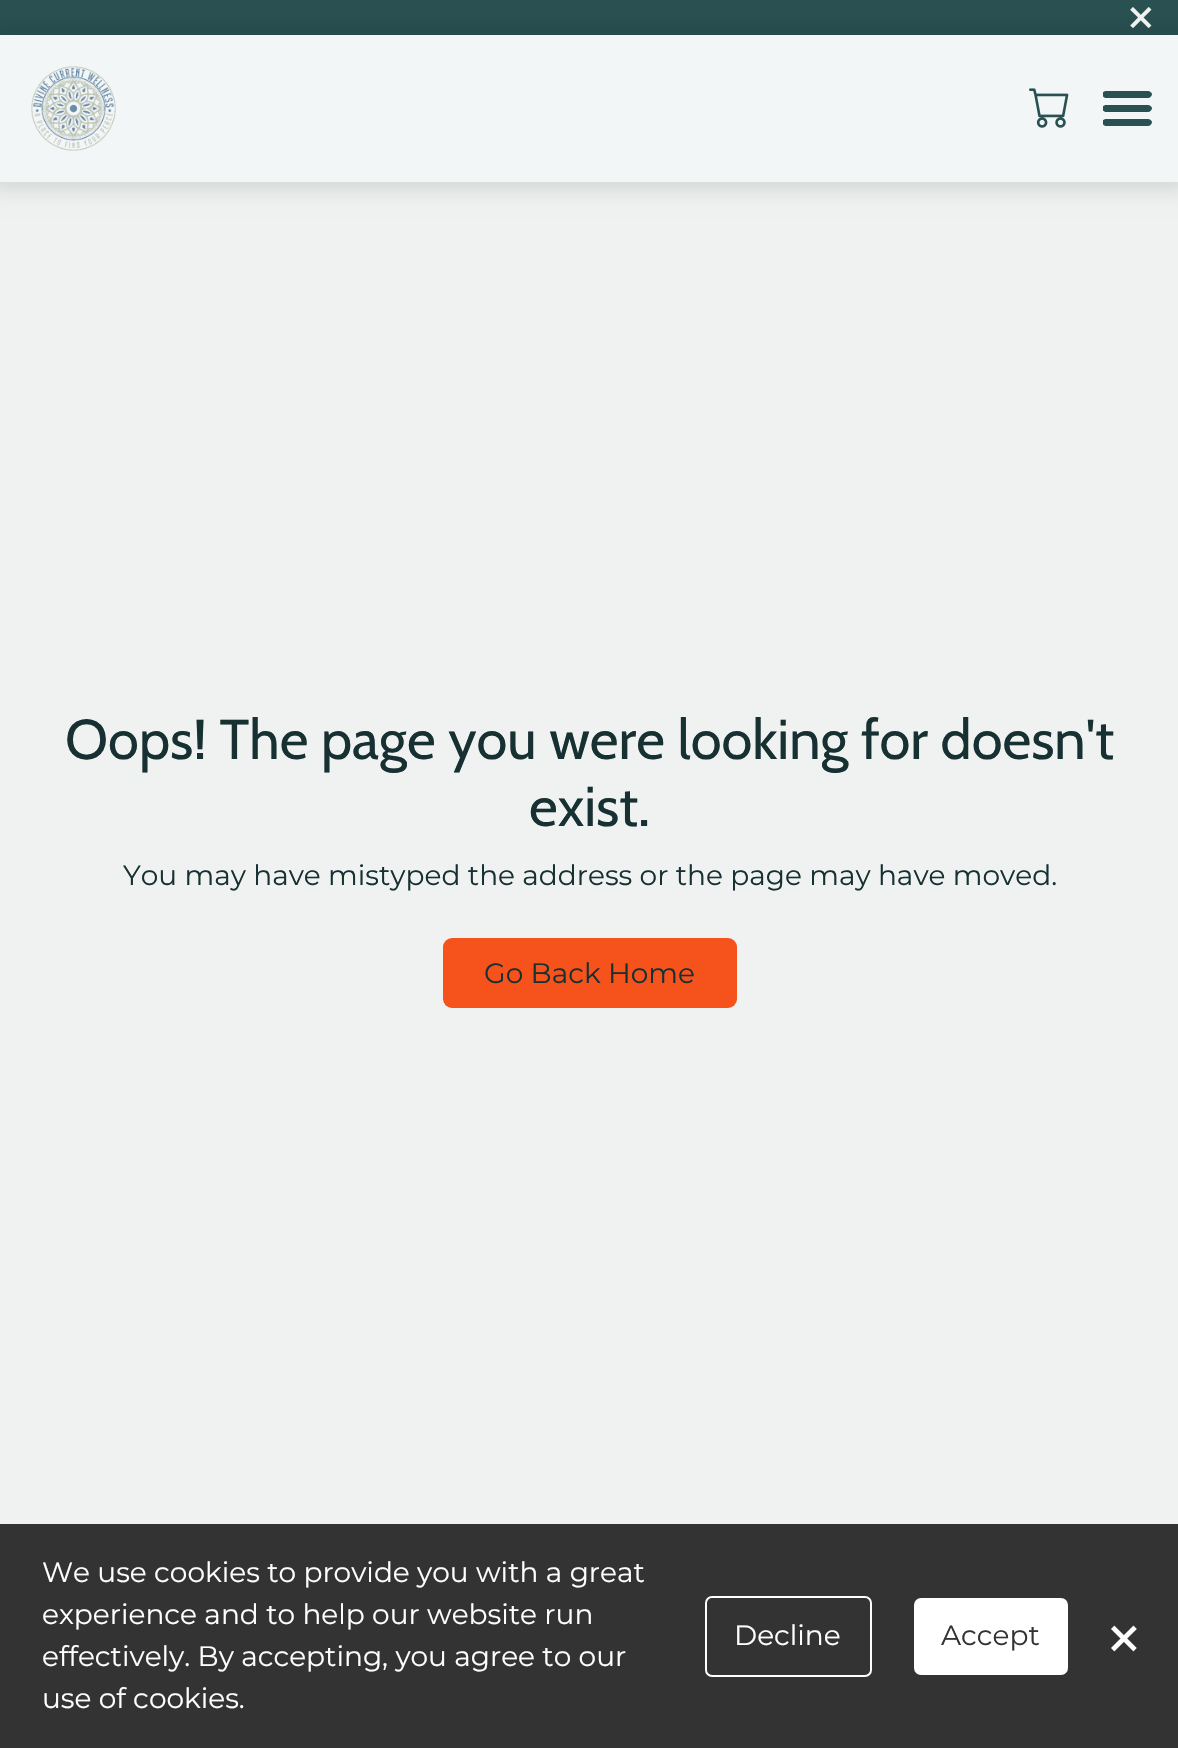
void draw(SkCanvas* canvas) {
	SkPaint fill;
	fill.setAntiAlias(true);
	auto makeFont = [&](const char* family, int weight, float size, bool italic = false) {
		SkFontStyle style(weight, SkFontStyle::kNormal_Width,
			italic ? SkFontStyle::kItalic_Slant : SkFontStyle::kUpright_Slant);
		SkFont result(fontMgr->matchFamilyStyle(family, style), size);
		result.setSubpixel(true);
		return result;
	};
	auto text = [&](const char* s, float x, float y, const SkFont& font) {
		canvas->drawString(s, x, y, font, fill);
	};
	auto box = [&](float l, float t, float r, float b) {
		canvas->drawRect(SkRect::MakeLTRB(l, t, r, b), fill);
	};
	auto roundBox = [&](float l, float t, float r, float b, float radius) {
		canvas->drawRoundRect(SkRect::MakeLTRB(l, t, r, b), radius, radius, fill);
	};
	auto picture = [&](const char* path, float l, float t, float r, float b) {
		auto image = SkImages::DeferredFromEncodedData(SkData::MakeFromFileName(path));
		canvas->drawImageRect(image, SkRect::MakeLTRB(l, t, r, b), SkSamplingOptions());
	};
	canvas->clear(0xFFF0F2F1);
	fill.setColor(0xFF2A5152);
	box(0, 0, 1178, 35);
	fill.setColor(0x1A000000);
	fill.setMaskFilter(SkMaskFilter::MakeBlur(kNormal_SkBlurStyle, 9));
	canvas->drawRect(SkRect::MakeLTRB(-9, 26, 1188, 191), fill);
	fill.setMaskFilter(nullptr);
	fill.setColor(0xFFF3F6F7);
	box(0, 35, 1178, 182);
	picture("image0.png", 31, 66, 116, 151);
	picture("image1.png", 1029, 88, 1069, 128);
	canvas->save();
	canvas->clipRect(SkRect::MakeLTRB(1103, 70, 1152, 119));
	fill.setColor(0xFF2A5152);
	canvas->drawPath(SkPathBuilder().moveTo(1102, 94).cubicTo(1102, 93, 1104, 91, 1106, 91).lineTo(1148, 91).cubicTo(1150, 91, 1152, 93, 1152, 94).cubicTo(1152, 96, 1150, 98, 1148, 98).lineTo(1106, 98).cubicTo(1104, 98, 1102, 96, 1102, 94).close().detach(), fill);
	canvas->restore();
	canvas->save();
	canvas->clipRect(SkRect::MakeLTRB(1103, 84, 1152, 133));
	canvas->drawPath(SkPathBuilder().moveTo(1102, 108).cubicTo(1102, 107, 1104, 105, 1106, 105).lineTo(1148, 105).cubicTo(1150, 105, 1152, 107, 1152, 108).cubicTo(1152, 110, 1150, 112, 1148, 112).lineTo(1106, 112).cubicTo(1104, 112, 1102, 110, 1102, 108).close().detach(), fill);
	canvas->restore();
	canvas->save();
	canvas->clipRect(SkRect::MakeLTRB(1103, 98, 1152, 147));
	canvas->drawPath(SkPathBuilder().moveTo(1102, 122).cubicTo(1102, 121, 1104, 119, 1106, 119).lineTo(1148, 119).cubicTo(1150, 119, 1152, 121, 1152, 122).cubicTo(1152, 124, 1150, 126, 1148, 126).lineTo(1106, 126).cubicTo(1104, 126, 1102, 124, 1102, 122).close().detach(), fill);
	canvas->restore();
	fill.setColor(0xFFF5521C);
	roundBox(443, 938, 737, 1008, 9);
	fill.setColor(0xFF333333);
	box(0, 1524, 1178, 1748);
	fill.setStyle(SkPaint::kStroke_Style);
	fill.setStrokeWidth(2);
	fill.setColor(0xFFFFFFFF);
	canvas->drawRoundRect(SkRect::MakeLTRB(706, 1597, 871, 1676), 6, 6, fill);
	fill.setStyle(SkPaint::kFill_Style);
	roundBox(914, 1598, 1068, 1675, 7);
	auto font1 = makeFont("DejaVu Sans Mono", 400, 46);
	fill.setColor(0xFFF0F2F1);
	text("×", 1127, 32, font1);
	auto font2 = makeFont("Cabin", 400, 56);
	fill.setColor(0xFF173032);
	text("Oops! The page you were looking for doesn't", 65, 759, font2);
	text("exist.", 529, 826, font2);
	auto font3 = makeFont("Montserrat", 100, 28);
	text("You may have mistyped the address or the page may have moved.", 123, 885, font3);
	text("Go Back Home", 484, 983, font3);
	fill.setColor(0xFFFFFFFF);
	text("We use cookies to provide you with a great", 42, 1582, font3);
	text("experience and to help our website run", 42, 1624, font3);
	text("effectively. By accepting, you agree to our", 42, 1666, font3);
	text("use of cookies.", 42, 1708, font3);
	text("Decline", 734, 1645, font3);
	fill.setColor(0xFF333333);
	text("Accept", 941, 1645, font3);
	auto font4 = makeFont("DejaVu Sans Mono", 400, 56);
	fill.setColor(0xFFFFFFFF);
	text("×", 1107, 1656, font4);
}
